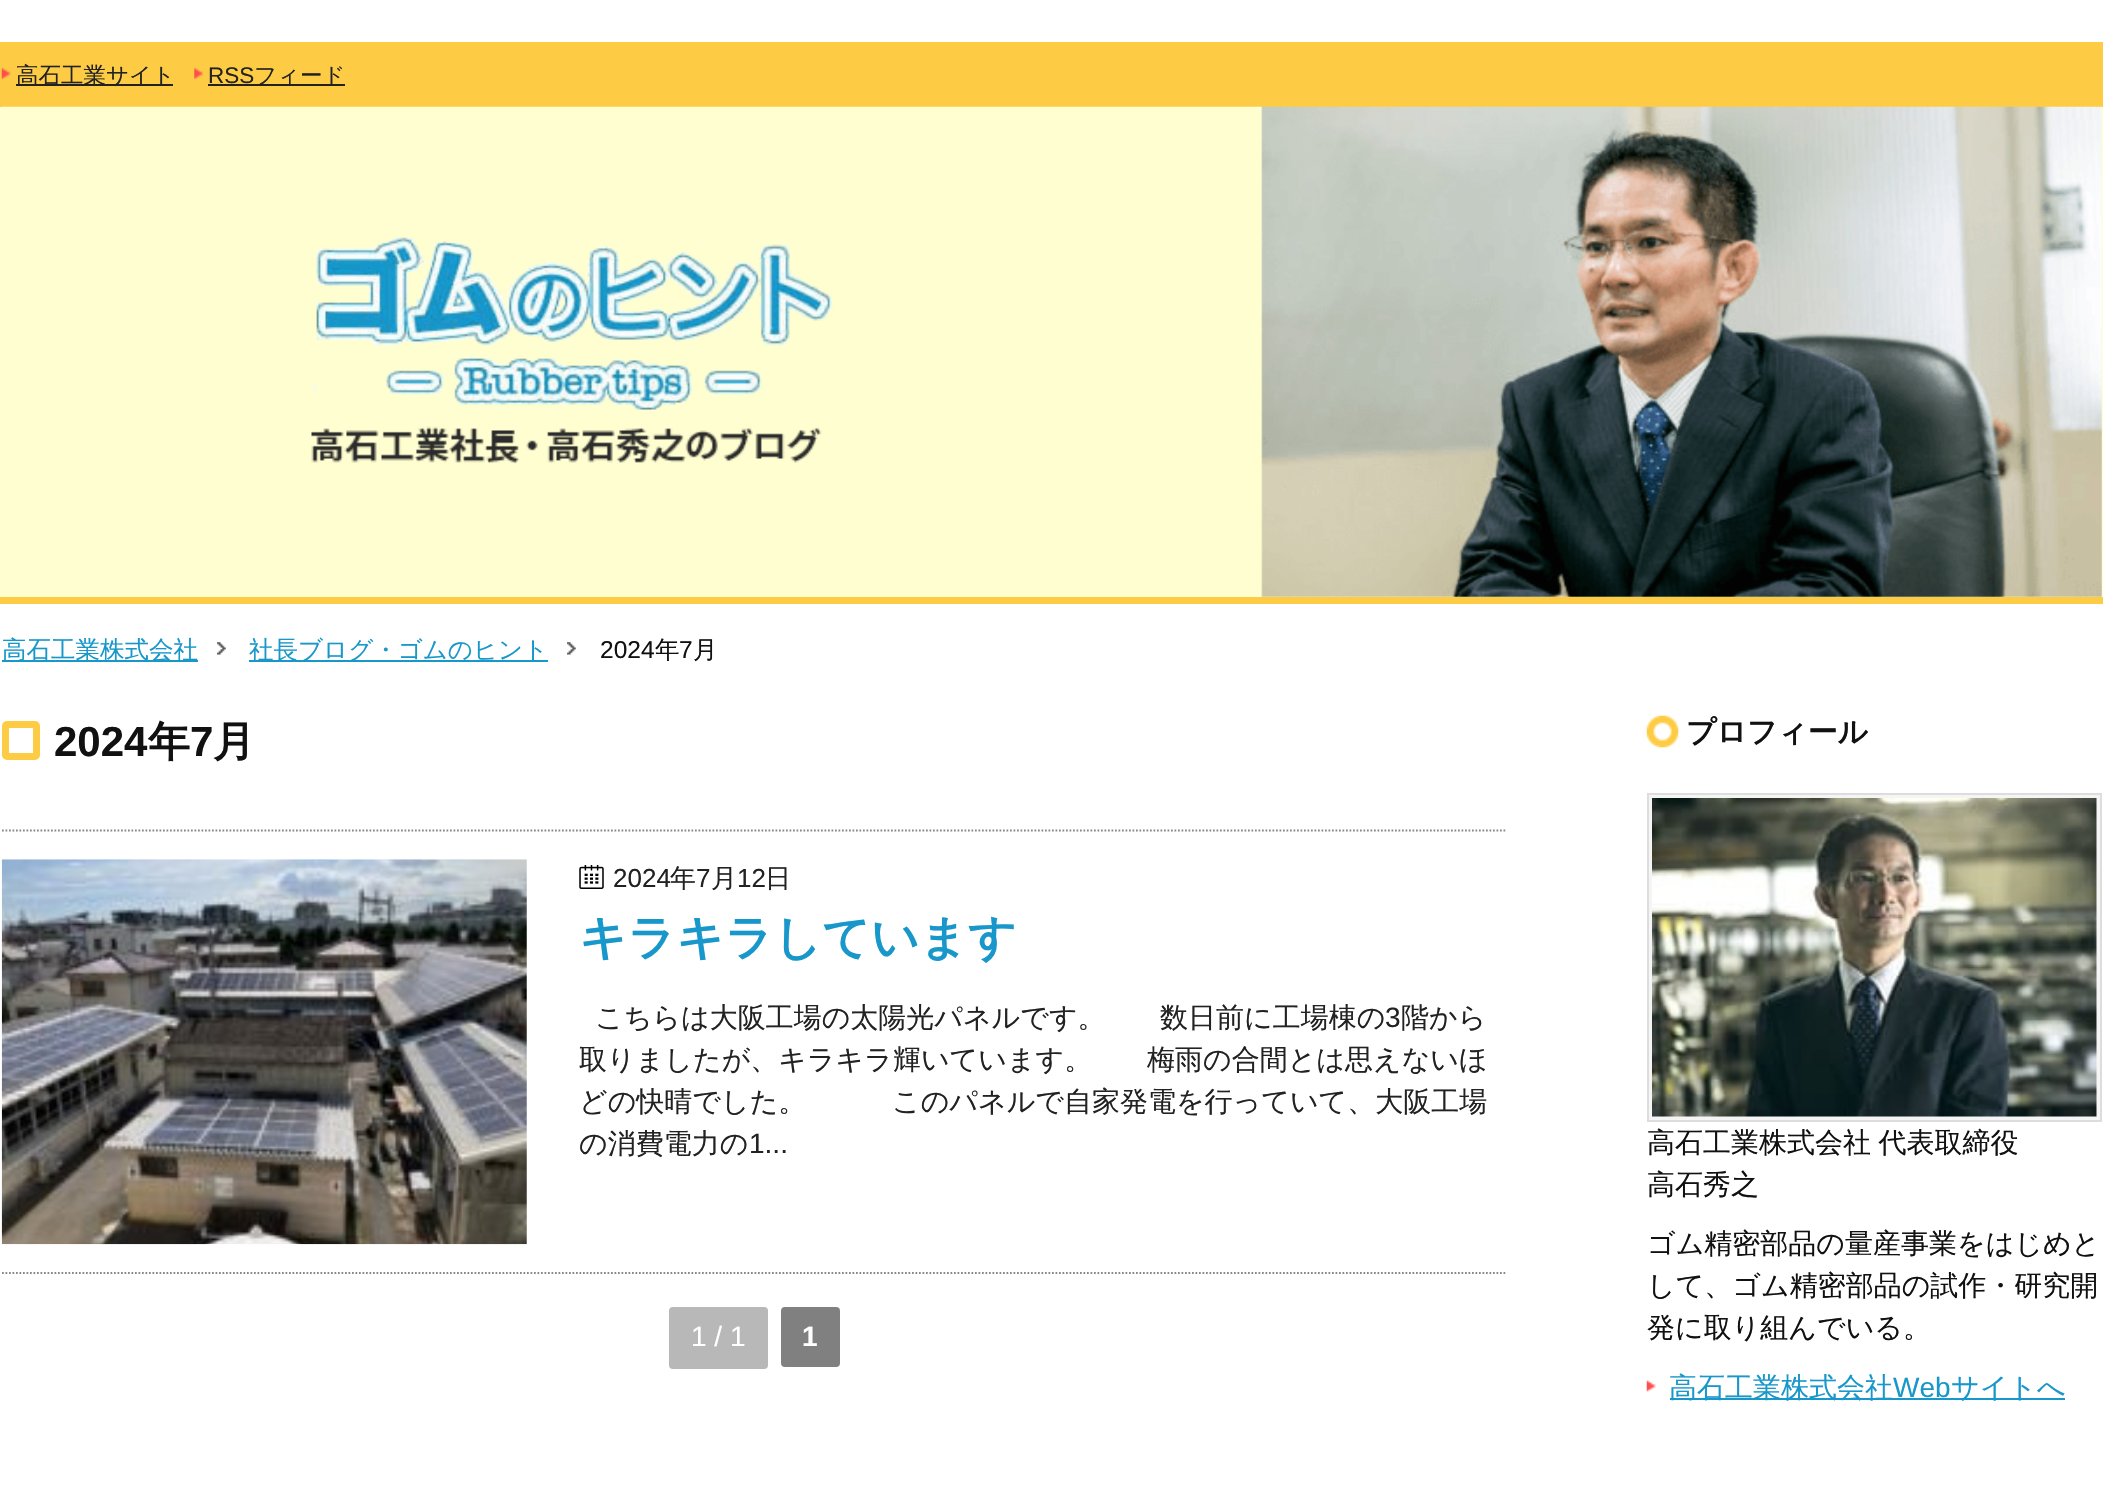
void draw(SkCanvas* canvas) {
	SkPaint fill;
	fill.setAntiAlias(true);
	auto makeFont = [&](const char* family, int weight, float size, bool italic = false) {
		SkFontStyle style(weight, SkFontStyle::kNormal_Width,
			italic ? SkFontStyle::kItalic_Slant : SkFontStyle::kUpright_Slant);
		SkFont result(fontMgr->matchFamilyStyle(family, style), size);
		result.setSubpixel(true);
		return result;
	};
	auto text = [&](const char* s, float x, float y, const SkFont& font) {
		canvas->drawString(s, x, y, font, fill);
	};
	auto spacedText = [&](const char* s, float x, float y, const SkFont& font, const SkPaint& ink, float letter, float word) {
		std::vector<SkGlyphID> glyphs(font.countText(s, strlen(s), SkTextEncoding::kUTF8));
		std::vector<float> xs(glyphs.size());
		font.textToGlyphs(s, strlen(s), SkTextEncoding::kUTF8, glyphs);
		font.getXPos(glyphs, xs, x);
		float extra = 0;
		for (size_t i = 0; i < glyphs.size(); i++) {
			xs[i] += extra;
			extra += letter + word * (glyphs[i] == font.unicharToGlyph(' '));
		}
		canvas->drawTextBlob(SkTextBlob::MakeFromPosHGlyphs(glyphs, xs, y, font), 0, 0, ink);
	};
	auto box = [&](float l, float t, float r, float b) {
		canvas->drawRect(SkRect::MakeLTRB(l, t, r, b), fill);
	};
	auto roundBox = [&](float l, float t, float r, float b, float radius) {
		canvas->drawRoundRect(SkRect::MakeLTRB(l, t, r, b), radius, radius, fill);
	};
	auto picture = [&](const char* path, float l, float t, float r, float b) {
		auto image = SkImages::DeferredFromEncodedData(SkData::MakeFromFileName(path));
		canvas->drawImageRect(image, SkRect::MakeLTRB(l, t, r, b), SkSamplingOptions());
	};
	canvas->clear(0xFFFFFFFF);
	fill.setColor(0xFFFECC44);
	box(0, 42, 2103, 107);
	picture("image0.png", 1, 68, 11, 79);
	fill.setColor(0xFF222222);
	box(16, 84, 173, 86);
	picture("image1.png", 194, 68, 203, 79);
	box(208, 84, 345, 86);
	fill.setColor(0xFFFFFED1);
	box(0, 107, 2103, 597);
	fill.setColor(0xFFFECC44);
	box(0, 597, 2103, 604);
	picture("image2.png", 1, 106, 2102, 597);
	fill.setColor(0xFF1897CA);
	box(2, 660, 198, 662);
	picture("image3.png", 217, 642, 226, 655);
	box(249, 660, 548, 662);
	picture("image3.png", 567, 642, 576, 655);
	fill.setStyle(SkPaint::kStroke_Style);
	fill.setStrokeWidth(7);
	fill.setColor(0xFFFECC44);
	canvas->drawRoundRect(SkRect::MakeLTRB(5.5f, 724.5f, 36.5f, 756.5f), 1.5f, 1.5f, fill);
	fill.setStrokeWidth(1.8f);
	fill.setColor(0xFF888888);
	fill.setPathEffect(SkDashPathEffect::Make({{1.75f, 1.75f}}, 0));
	canvas->drawPath(SkPathBuilder().moveTo(2, 830.5f).lineTo(1507, 830.5f).detach(), fill);
	fill.setPathEffect(nullptr);
	fill.setPathEffect(SkDashPathEffect::Make({{1.75f, 1.75f}}, 0));
	canvas->drawPath(SkPathBuilder().moveTo(2, 1273).lineTo(1507, 1273).detach(), fill);
	fill.setPathEffect(nullptr);
	picture("image4.png", 1, 859, 527, 1245);
	picture("image5.png", 579, 865, 604, 889);
	fill.setStyle(SkPaint::kFill_Style);
	fill.setColor(0xFFB8B8B8);
	roundBox(669, 1307, 768, 1369, 4);
	fill.setColor(0xFF808080);
	roundBox(781, 1307, 840, 1367, 4);
	picture("image6.png", 1646, 715, 1679, 748);
	fill.setColor(0xFFF5F5F5);
	canvas->drawRect(SkRect::MakeLTRB(1648, 794, 2101, 1121), fill);
	fill.setStyle(SkPaint::kStroke_Style);
	fill.setStrokeWidth(2);
	fill.setColor(0xFFDDDDDD);
	canvas->drawRect(SkRect::MakeLTRB(1648, 794, 2101, 1121), fill);
	picture("image7.png", 1652, 798, 2097, 1117);
	picture("image8.png", 1646, 1380, 1656, 1392);
	fill.setStyle(SkPaint::kFill_Style);
	fill.setColor(0xFF1897CA);
	box(1670, 1398, 2065, 1400);
	auto font1 = makeFont("WenQuanYi Zen Hei", 500, 22.5f);
	fill.setColor(0xFF222222);
	text("高石工業サイト", 16, 83, font1);
	auto font2 = makeFont("Liberation Sans", 400, 22.5f);
	text("RSS", 208, 83, font2);
	text("フィード", 254, 83, font1);
	auto font3 = makeFont("WenQuanYi Zen Hei", 500, 24.5f);
	fill.setColor(0xFF1897CA);
	text("高石工業株式会社", 2, 658, font3);
	text("社長ブログ・ゴムのヒント", 249, 658, font3);
	auto font4 = makeFont("Liberation Sans", 400, 24.5f);
	fill.setColor(0xFF111111);
	text("2024", 600, 658, font4);
	text("年", 655, 658, font3);
	text("7", 679, 658, font4);
	text("月", 693, 658, font3);
	auto font5 = makeFont("Liberation Sans", 700, 42);
	text("2024", 54, 756, font5);
	auto font6 = makeFont("WenQuanYi Zen Hei", 700, 42);
	text("年", 148, 756, font6);
	text("7", 190, 756, font5);
	text("月", 213, 756, font6);
	auto font7 = makeFont("Liberation Sans", 400, 26);
	fill.setColor(0xFF222222);
	text("2024", 613, 887, font7);
	auto font8 = makeFont("WenQuanYi Zen Hei", 500, 26);
	text("年", 670, 887, font8);
	text("7", 696, 887, font7);
	text("月", 711, 887, font8);
	text("12", 737, 887, font7);
	text("日", 765, 887, font8);
	auto font9 = makeFont("WenQuanYi Zen Hei", 700, 47.5f);
	fill.setColor(0xFF1897CA);
	text("キラキラしています", 579, 954, font9);
	auto font10 = makeFont("WenQuanYi Zen Hei", 500, 28);
	fill.setColor(0xFF222222);
	text("こちらは大阪工場の太陽光パネルです。", 595, 1027, font10);
	text("数日前に工場棟の", 1160, 1027, font10);
	auto font11 = makeFont("Liberation Sans", 400, 28);
	text("3", 1385, 1027, font11);
	text("階から", 1401, 1027, font10);
	text("取りましたが、キラキラ輝いています。", 579, 1069, font10);
	text("梅雨の合間とは思えないほ", 1147, 1069, font10);
	text("どの快晴でした。", 579, 1111, font10);
	text("このパネルで自家発電を行っていて、大阪工場", 892, 1111, font10);
	text("の消費電力の", 579, 1153, font10);
	text("1...", 749, 1153, font11);
	fill.setColor(0xFFFFFFFF);
	text("1 / 1", 691, 1346, font11);
	auto font12 = makeFont("Liberation Sans", 700, 28);
	text("1", 802, 1346, font12);
	auto font13 = makeFont("WenQuanYi Zen Hei", 700, 29.75f);
	fill.setColor(0xFF111111);
	text("プロフィール", 1686, 742, font13);
	spacedText("高石工業株式会社 代表取締役", 1647, 1152, font10, fill, 0, -1);
	text("高石秀之", 1647, 1194, font10);
	text("ゴム精密部品の量産事業をはじめと", 1647, 1253, font10);
	text("して、ゴム精密部品の試作・研究開", 1647, 1295, font10);
	text("発に取り組んでいる。", 1647, 1337, font10);
	fill.setColor(0xFF1897CA);
	text("高石工業株式会社", 1669, 1397, font10);
	text("Web", 1893, 1397, font11);
	text("サイトへ", 1951, 1397, font10);
}
